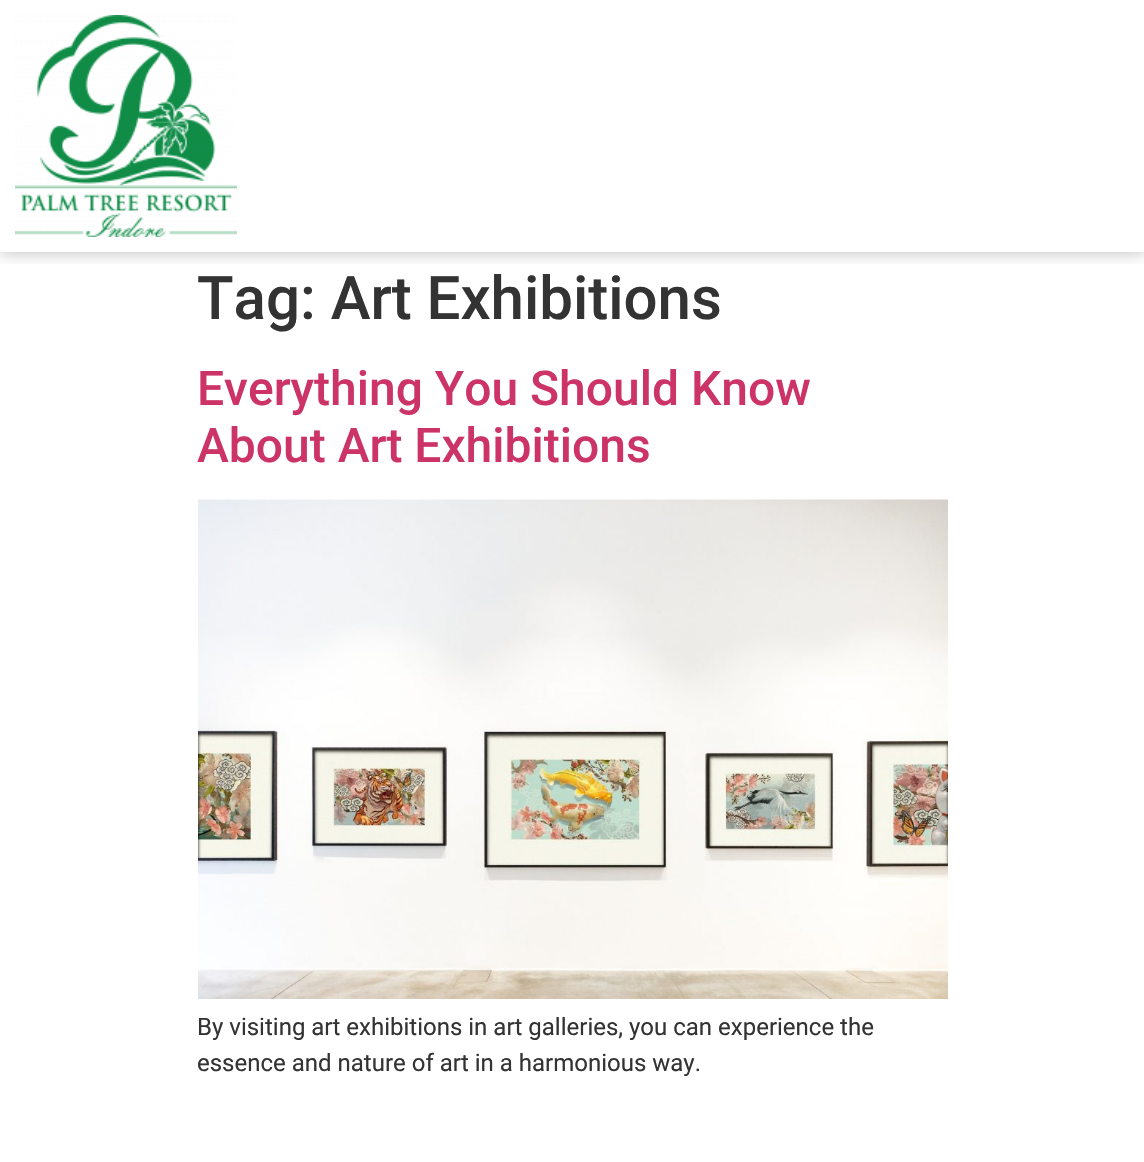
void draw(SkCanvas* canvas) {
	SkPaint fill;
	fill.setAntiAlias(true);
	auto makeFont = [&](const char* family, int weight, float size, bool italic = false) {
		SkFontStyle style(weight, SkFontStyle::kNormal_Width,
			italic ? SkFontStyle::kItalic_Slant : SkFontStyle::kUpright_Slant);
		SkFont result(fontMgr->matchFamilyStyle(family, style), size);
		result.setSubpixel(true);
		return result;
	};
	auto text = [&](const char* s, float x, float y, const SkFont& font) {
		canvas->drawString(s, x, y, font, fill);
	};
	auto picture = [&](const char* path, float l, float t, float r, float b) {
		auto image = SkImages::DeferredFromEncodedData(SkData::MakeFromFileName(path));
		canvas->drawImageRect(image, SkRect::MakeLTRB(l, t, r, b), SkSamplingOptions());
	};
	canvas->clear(0xFFFFFFFF);
	canvas->save();
	canvas->clipRect(SkRect::MakeLTRB(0, 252, 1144, 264));
	fill.setColor(0x45000000);
	fill.setMaskFilter(SkMaskFilter::MakeBlur(kNormal_SkBlurStyle, 8));
	canvas->drawRect(SkRect::MakeLTRB(0, 0, 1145, 252), fill);
	fill.setMaskFilter(nullptr);
	canvas->restore();
	picture("image0.png", 15, 15, 237, 237);
	picture("image1.png", 198, 499, 948, 999);
	auto font1 = makeFont("Roboto", 500, 60);
	fill.setColor(0xFF333333);
	text("Tag: Art Exhibitions", 197, 319, font1);
	auto font2 = makeFont("Roboto", 500, 48);
	fill.setColor(0xFFCC3366);
	text("Everything You Should Know", 197, 405, font2);
	text("About Art Exhibitions", 197, 462, font2);
	auto font3 = makeFont("Roboto", 400, 24);
	fill.setColor(0xFF333333);
	text("By visiting art exhibitions in art galleries, you can experience the", 197, 1035, font3);
	text("essence and nature of art in a harmonious way.", 197, 1071, font3);
}
